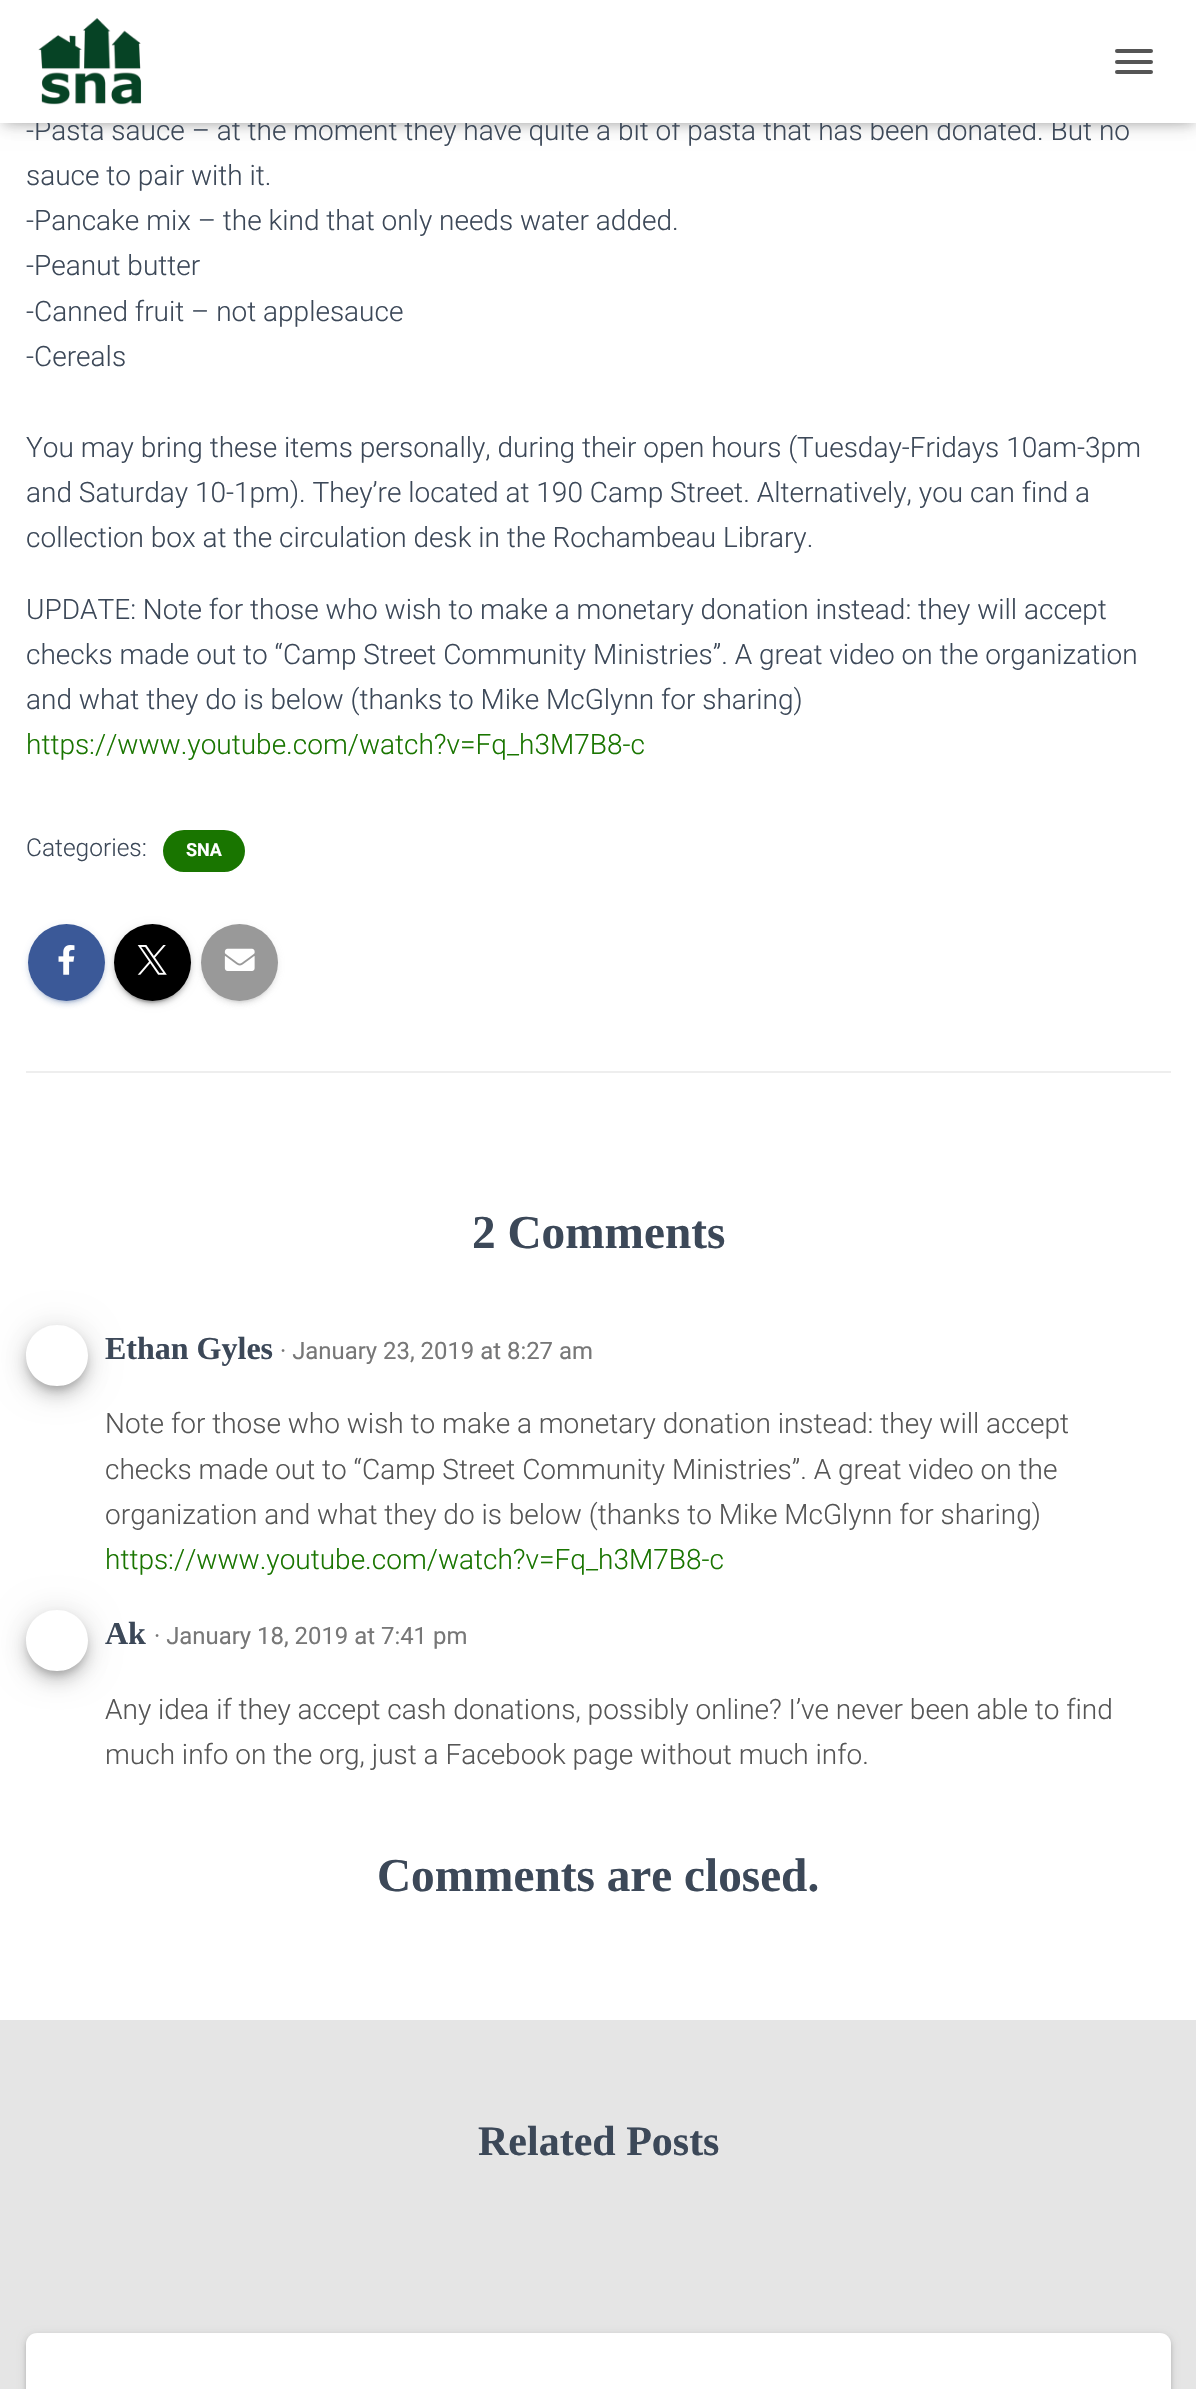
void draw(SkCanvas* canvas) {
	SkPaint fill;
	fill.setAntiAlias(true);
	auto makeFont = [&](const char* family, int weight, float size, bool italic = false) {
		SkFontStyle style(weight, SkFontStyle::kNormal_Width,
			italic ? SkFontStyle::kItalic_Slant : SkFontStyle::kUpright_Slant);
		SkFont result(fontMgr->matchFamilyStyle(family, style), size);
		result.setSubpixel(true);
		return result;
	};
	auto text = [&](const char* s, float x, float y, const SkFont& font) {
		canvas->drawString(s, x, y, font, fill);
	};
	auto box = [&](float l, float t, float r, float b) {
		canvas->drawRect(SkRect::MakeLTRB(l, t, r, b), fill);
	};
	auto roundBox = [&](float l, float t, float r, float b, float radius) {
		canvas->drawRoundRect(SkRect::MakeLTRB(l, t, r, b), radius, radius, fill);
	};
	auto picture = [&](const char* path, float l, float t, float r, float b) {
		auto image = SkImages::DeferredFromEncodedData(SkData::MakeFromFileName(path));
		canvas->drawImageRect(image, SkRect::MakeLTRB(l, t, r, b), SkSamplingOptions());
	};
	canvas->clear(0xFFE5E5E5);
	fill.setColor(0xFFFFFFFF);
	box(0, 123, 1196, 2020);
	fill.setColor(0x1A000000);
	fill.setMaskFilter(SkMaskFilter::MakeBlur(kNormal_SkBlurStyle, 4.5f));
	canvas->drawRect(SkRect::MakeLTRB(4, 11, 1194, 126), fill);
	fill.setMaskFilter(nullptr);
	fill.setColor(0x1F000000);
	fill.setMaskFilter(SkMaskFilter::MakeBlur(kNormal_SkBlurStyle, 9));
	canvas->drawRect(SkRect::MakeLTRB(0, 2, 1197, 124), fill);
	fill.setMaskFilter(nullptr);
	fill.setColor(0x6B000000);
	fill.setMaskFilter(SkMaskFilter::MakeBlur(kNormal_SkBlurStyle, 9));
	canvas->drawRect(SkRect::MakeLTRB(11, 12, 1187, 114), fill);
	fill.setMaskFilter(nullptr);
	fill.setColor(0xFF197500);
	roundBox(163, 830, 245, 872, 21);
	fill.setColor(0x1F3B5998);
	fill.setMaskFilter(SkMaskFilter::MakeBlur(kNormal_SkBlurStyle, 4.5f));
	canvas->drawRoundRect(SkRect::MakeLTRB(28, 926, 105, 1003), 38.5f, 38.5f, fill);
	fill.setMaskFilter(nullptr);
	fill.setColor(0x333B5998);
	fill.setMaskFilter(SkMaskFilter::MakeBlur(kNormal_SkBlurStyle, 1));
	canvas->drawRoundRect(SkRect::MakeLTRB(32, 933, 102, 1003), 35, 35, fill);
	fill.setMaskFilter(nullptr);
	fill.setColor(0x243B5998);
	fill.setMaskFilter(SkMaskFilter::MakeBlur(kNormal_SkBlurStyle, 2));
	canvas->drawRoundRect(SkRect::MakeLTRB(28, 928, 105, 1005), 38.5f, 38.5f, fill);
	fill.setMaskFilter(nullptr);
	fill.setColor(0xFF3B5998);
	canvas->drawCircle(66.5f, 962.5f, 38.5f, fill);
	picture("image1.png", 58, 945, 75, 975);
	fill.setColor(0x1F000000);
	fill.setMaskFilter(SkMaskFilter::MakeBlur(kNormal_SkBlurStyle, 4.5f));
	canvas->drawRoundRect(SkRect::MakeLTRB(114, 926, 191, 1003), 38.5f, 38.5f, fill);
	fill.setMaskFilter(nullptr);
	fill.setColor(0x33000000);
	fill.setMaskFilter(SkMaskFilter::MakeBlur(kNormal_SkBlurStyle, 1));
	canvas->drawRoundRect(SkRect::MakeLTRB(117, 933, 187, 1003), 35, 35, fill);
	fill.setMaskFilter(nullptr);
	fill.setColor(0x24000000);
	fill.setMaskFilter(SkMaskFilter::MakeBlur(kNormal_SkBlurStyle, 2));
	canvas->drawRoundRect(SkRect::MakeLTRB(114, 928, 191, 1005), 38.5f, 38.5f, fill);
	fill.setMaskFilter(nullptr);
	fill.setColor(0xFF000000);
	canvas->drawCircle(152.5f, 962.5f, 38.5f, fill);
	picture("image2.png", 137, 945, 167, 975);
	fill.setColor(0x1F999999);
	fill.setMaskFilter(SkMaskFilter::MakeBlur(kNormal_SkBlurStyle, 4.5f));
	canvas->drawRoundRect(SkRect::MakeLTRB(201, 926, 278, 1003), 38.5f, 38.5f, fill);
	fill.setMaskFilter(nullptr);
	fill.setColor(0x33999999);
	fill.setMaskFilter(SkMaskFilter::MakeBlur(kNormal_SkBlurStyle, 1));
	canvas->drawRoundRect(SkRect::MakeLTRB(205, 933, 275, 1003), 35, 35, fill);
	fill.setMaskFilter(nullptr);
	fill.setColor(0x24999999);
	fill.setMaskFilter(SkMaskFilter::MakeBlur(kNormal_SkBlurStyle, 2));
	canvas->drawRoundRect(SkRect::MakeLTRB(201, 928, 278, 1005), 38.5f, 38.5f, fill);
	fill.setMaskFilter(nullptr);
	fill.setColor(0xFF999999);
	canvas->drawCircle(239.5f, 962.5f, 38.5f, fill);
	picture("image3.png", 224, 948, 255, 971);
	fill.setColor(0xFFEEEEEE);
	box(26, 1071, 1171, 1073);
	canvas->save();
	canvas->clipPath(SkPathBuilder(SkPathFillType::kEvenOdd).moveTo(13, 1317).lineTo(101, 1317).lineTo(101, 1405).lineTo(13, 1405).close().moveTo(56.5f, 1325).lineTo(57.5f, 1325).cubicTo(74.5f, 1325, 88, 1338.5f, 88, 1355.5f).cubicTo(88, 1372.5f, 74.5f, 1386, 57.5f, 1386).lineTo(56.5f, 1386).cubicTo(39.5f, 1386, 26, 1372.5f, 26, 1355.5f).cubicTo(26, 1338.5f, 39.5f, 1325, 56.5f, 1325).close().detach(), true);
	fill.setColor(0x33000000);
	fill.setMaskFilter(SkMaskFilter::MakeBlur(kNormal_SkBlurStyle, 4.5f));
	canvas->drawRoundRect(SkRect::MakeLTRB(28, 1332, 86, 1390), 29, 29, fill);
	fill.setMaskFilter(nullptr);
	canvas->restore();
	canvas->save();
	canvas->clipPath(SkPathBuilder(SkPathFillType::kEvenOdd).moveTo(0, 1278).lineTo(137, 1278).lineTo(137, 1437).lineTo(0, 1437).close().moveTo(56.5f, 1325).lineTo(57.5f, 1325).cubicTo(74.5f, 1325, 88, 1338.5f, 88, 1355.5f).cubicTo(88, 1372.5f, 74.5f, 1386, 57.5f, 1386).lineTo(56.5f, 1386).cubicTo(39.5f, 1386, 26, 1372.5f, 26, 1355.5f).cubicTo(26, 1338.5f, 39.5f, 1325, 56.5f, 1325).close().detach(), true);
	fill.setColor(0x1F000000);
	fill.setMaskFilter(SkMaskFilter::MakeBlur(kNormal_SkBlurStyle, 16));
	canvas->drawRoundRect(SkRect::MakeLTRB(26, 1327, 88, 1388), 30.5f, 30.5f, fill);
	fill.setMaskFilter(nullptr);
	canvas->restore();
	canvas->save();
	canvas->clipPath(SkPathBuilder(SkPathFillType::kEvenOdd).moveTo(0, 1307).lineTo(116, 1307).lineTo(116, 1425).lineTo(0, 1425).close().moveTo(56.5f, 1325).lineTo(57.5f, 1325).cubicTo(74.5f, 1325, 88, 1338.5f, 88, 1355.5f).cubicTo(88, 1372.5f, 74.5f, 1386, 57.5f, 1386).lineTo(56.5f, 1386).cubicTo(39.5f, 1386, 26, 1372.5f, 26, 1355.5f).cubicTo(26, 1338.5f, 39.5f, 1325, 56.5f, 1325).close().detach(), true);
	fill.setColor(0x24000000);
	fill.setMaskFilter(SkMaskFilter::MakeBlur(kNormal_SkBlurStyle, 9));
	canvas->drawRoundRect(SkRect::MakeLTRB(26, 1335, 88, 1397), 31, 31, fill);
	fill.setMaskFilter(nullptr);
	canvas->restore();
	canvas->save();
	canvas->clipPath(SkPathBuilder(SkPathFillType::kEvenOdd).moveTo(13, 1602).lineTo(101, 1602).lineTo(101, 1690).lineTo(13, 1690).close().moveTo(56.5f, 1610).lineTo(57.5f, 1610).cubicTo(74.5f, 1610, 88, 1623.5f, 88, 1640.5f).cubicTo(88, 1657.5f, 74.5f, 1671, 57.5f, 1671).lineTo(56.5f, 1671).cubicTo(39.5f, 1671, 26, 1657.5f, 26, 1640.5f).cubicTo(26, 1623.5f, 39.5f, 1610, 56.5f, 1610).close().detach(), true);
	fill.setColor(0x33000000);
	fill.setMaskFilter(SkMaskFilter::MakeBlur(kNormal_SkBlurStyle, 4.5f));
	canvas->drawRoundRect(SkRect::MakeLTRB(28, 1617, 86, 1675), 29, 29, fill);
	fill.setMaskFilter(nullptr);
	canvas->restore();
	canvas->save();
	canvas->clipPath(SkPathBuilder(SkPathFillType::kEvenOdd).moveTo(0, 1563).lineTo(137, 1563).lineTo(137, 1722).lineTo(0, 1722).close().moveTo(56.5f, 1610).lineTo(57.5f, 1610).cubicTo(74.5f, 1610, 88, 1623.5f, 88, 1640.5f).cubicTo(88, 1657.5f, 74.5f, 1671, 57.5f, 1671).lineTo(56.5f, 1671).cubicTo(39.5f, 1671, 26, 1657.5f, 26, 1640.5f).cubicTo(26, 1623.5f, 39.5f, 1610, 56.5f, 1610).close().detach(), true);
	fill.setColor(0x1F000000);
	fill.setMaskFilter(SkMaskFilter::MakeBlur(kNormal_SkBlurStyle, 16));
	canvas->drawRoundRect(SkRect::MakeLTRB(26, 1612, 88, 1673), 30.5f, 30.5f, fill);
	fill.setMaskFilter(nullptr);
	canvas->restore();
	canvas->save();
	canvas->clipPath(SkPathBuilder(SkPathFillType::kEvenOdd).moveTo(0, 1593).lineTo(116, 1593).lineTo(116, 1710).lineTo(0, 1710).close().moveTo(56.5f, 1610).lineTo(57.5f, 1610).cubicTo(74.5f, 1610, 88, 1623.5f, 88, 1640.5f).cubicTo(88, 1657.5f, 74.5f, 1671, 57.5f, 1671).lineTo(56.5f, 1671).cubicTo(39.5f, 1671, 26, 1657.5f, 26, 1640.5f).cubicTo(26, 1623.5f, 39.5f, 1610, 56.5f, 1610).close().detach(), true);
	fill.setColor(0x24000000);
	fill.setMaskFilter(SkMaskFilter::MakeBlur(kNormal_SkBlurStyle, 9));
	canvas->drawRoundRect(SkRect::MakeLTRB(26, 1621, 88, 1682), 30.5f, 30.5f, fill);
	fill.setMaskFilter(nullptr);
	canvas->restore();
	fill.setColor(0x1F000000);
	fill.setMaskFilter(SkMaskFilter::MakeBlur(kNormal_SkBlurStyle, 4.5f));
	canvas->drawRoundRect(SkRect::MakeLTRB(26, 2335, 1171, 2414), 11, 11, fill);
	fill.setMaskFilter(nullptr);
	fill.setColor(0x24000000);
	fill.setMaskFilter(SkMaskFilter::MakeBlur(kNormal_SkBlurStyle, 2));
	canvas->drawRoundRect(SkRect::MakeLTRB(26, 2336, 1171, 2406), 11, 11, fill);
	fill.setMaskFilter(nullptr);
	fill.setColor(0xFFFFFFFF);
	roundBox(26, 2333, 1171, 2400, 11);
	auto font1 = makeFont("Roboto", 300, 28);
	fill.setColor(0xFF3C4858);
	text("-Pasta sauce – at the moment they have quite a bit of pasta that has been donated. But no", 26, 140, font1);
	fill.setColor(0xFFFFFFFF);
	box(0, 0, 1196, 123);
	fill.setColor(0xFF555555);
	roundBox(1115, 70, 1153, 74, 2);
	roundBox(1115, 60, 1153, 64, 2);
	roundBox(1115, 49, 1153, 53, 2);
	picture("image0.png", 38, 18, 142, 105);
	fill.setColor(0xFF3C4858);
	text("sauce to pair with it.", 26, 185, font1);
	text("-Pancake mix – the kind that only needs water added.", 26, 230, font1);
	text("-Peanut butter", 26, 275, font1);
	text("-Canned fruit – not applesauce", 26, 321, font1);
	text("-Cereals", 26, 366, font1);
	text("You may bring these items personally, during their open hours (Tuesday-Fridays 10am-3pm", 26, 457, font1);
	text("and Saturday 10-1pm). They’re located at 190 Camp Street. Alternatively, you can find a", 26, 502, font1);
	text("collection box at the circulation desk in the Rochambeau Library.", 26, 547, font1);
	text("UPDATE: Note for those who wish to make a monetary donation instead: they will accept", 26, 619, font1);
	text("checks made out to “Camp Street Community Ministries”. A great video on the organization", 26, 664, font1);
	text("and what they do is below (thanks to Mike McGlynn for sharing)", 26, 709, font1);
	fill.setColor(0xFF197500);
	text("https://www.youtube.com/watch?v=Fq_h3M7B8-c", 26, 754, font1);
	auto font2 = makeFont("Roboto", 300, 24.5f);
	fill.setColor(0xFF3C4858);
	text("Categories:", 26, 856, font2);
	auto font3 = makeFont("Roboto", 700, 18);
	fill.setColor(0xFFFFFFFF);
	text("SNA", 186, 856, font3);
	auto font4 = makeFont("Liberation Serif", 700, 47.25f);
	fill.setColor(0xFF3C4858);
	text("2 Comments", 472, 1248, font4);
	auto font5 = makeFont("Liberation Serif", 700, 32);
	text("Ethan Gyles", 105, 1359, font5);
	auto font6 = makeFont("Roboto", 400, 23.9f);
	fill.setColor(0xFF777777);
	text("· January 23, 2019 at 8:27 am", 280, 1359, font6);
	fill.setColor(0xFF555555);
	text("Note for those who wish to make a monetary donation instead: they will accept", 105, 1433, font1);
	text("checks made out to “Camp Street Community Ministries”. A great video on the", 105, 1479, font1);
	text("organization and what they do is below (thanks to Mike McGlynn for sharing)", 105, 1524, font1);
	fill.setColor(0xFF197500);
	text("https://www.youtube.com/watch?v=Fq_h3M7B8-c", 105, 1569, font1);
	fill.setColor(0xFF3C4858);
	text("Ak", 105, 1644, font5);
	fill.setColor(0xFF777777);
	text("· January 18, 2019 at 7:41 pm", 154, 1644, font6);
	fill.setColor(0xFF555555);
	text("Any idea if they accept cash donations, possibly online? I’ve never been able to find", 105, 1719, font1);
	text("much info on the org, just a Facebook page without much info.", 105, 1764, font1);
	fill.setColor(0xFF3C4858);
	text("Comments are closed.", 377, 1891, font4);
	auto font7 = makeFont("Liberation Serif", 700, 42);
	text("Related Posts", 478, 2155, font7);
}
